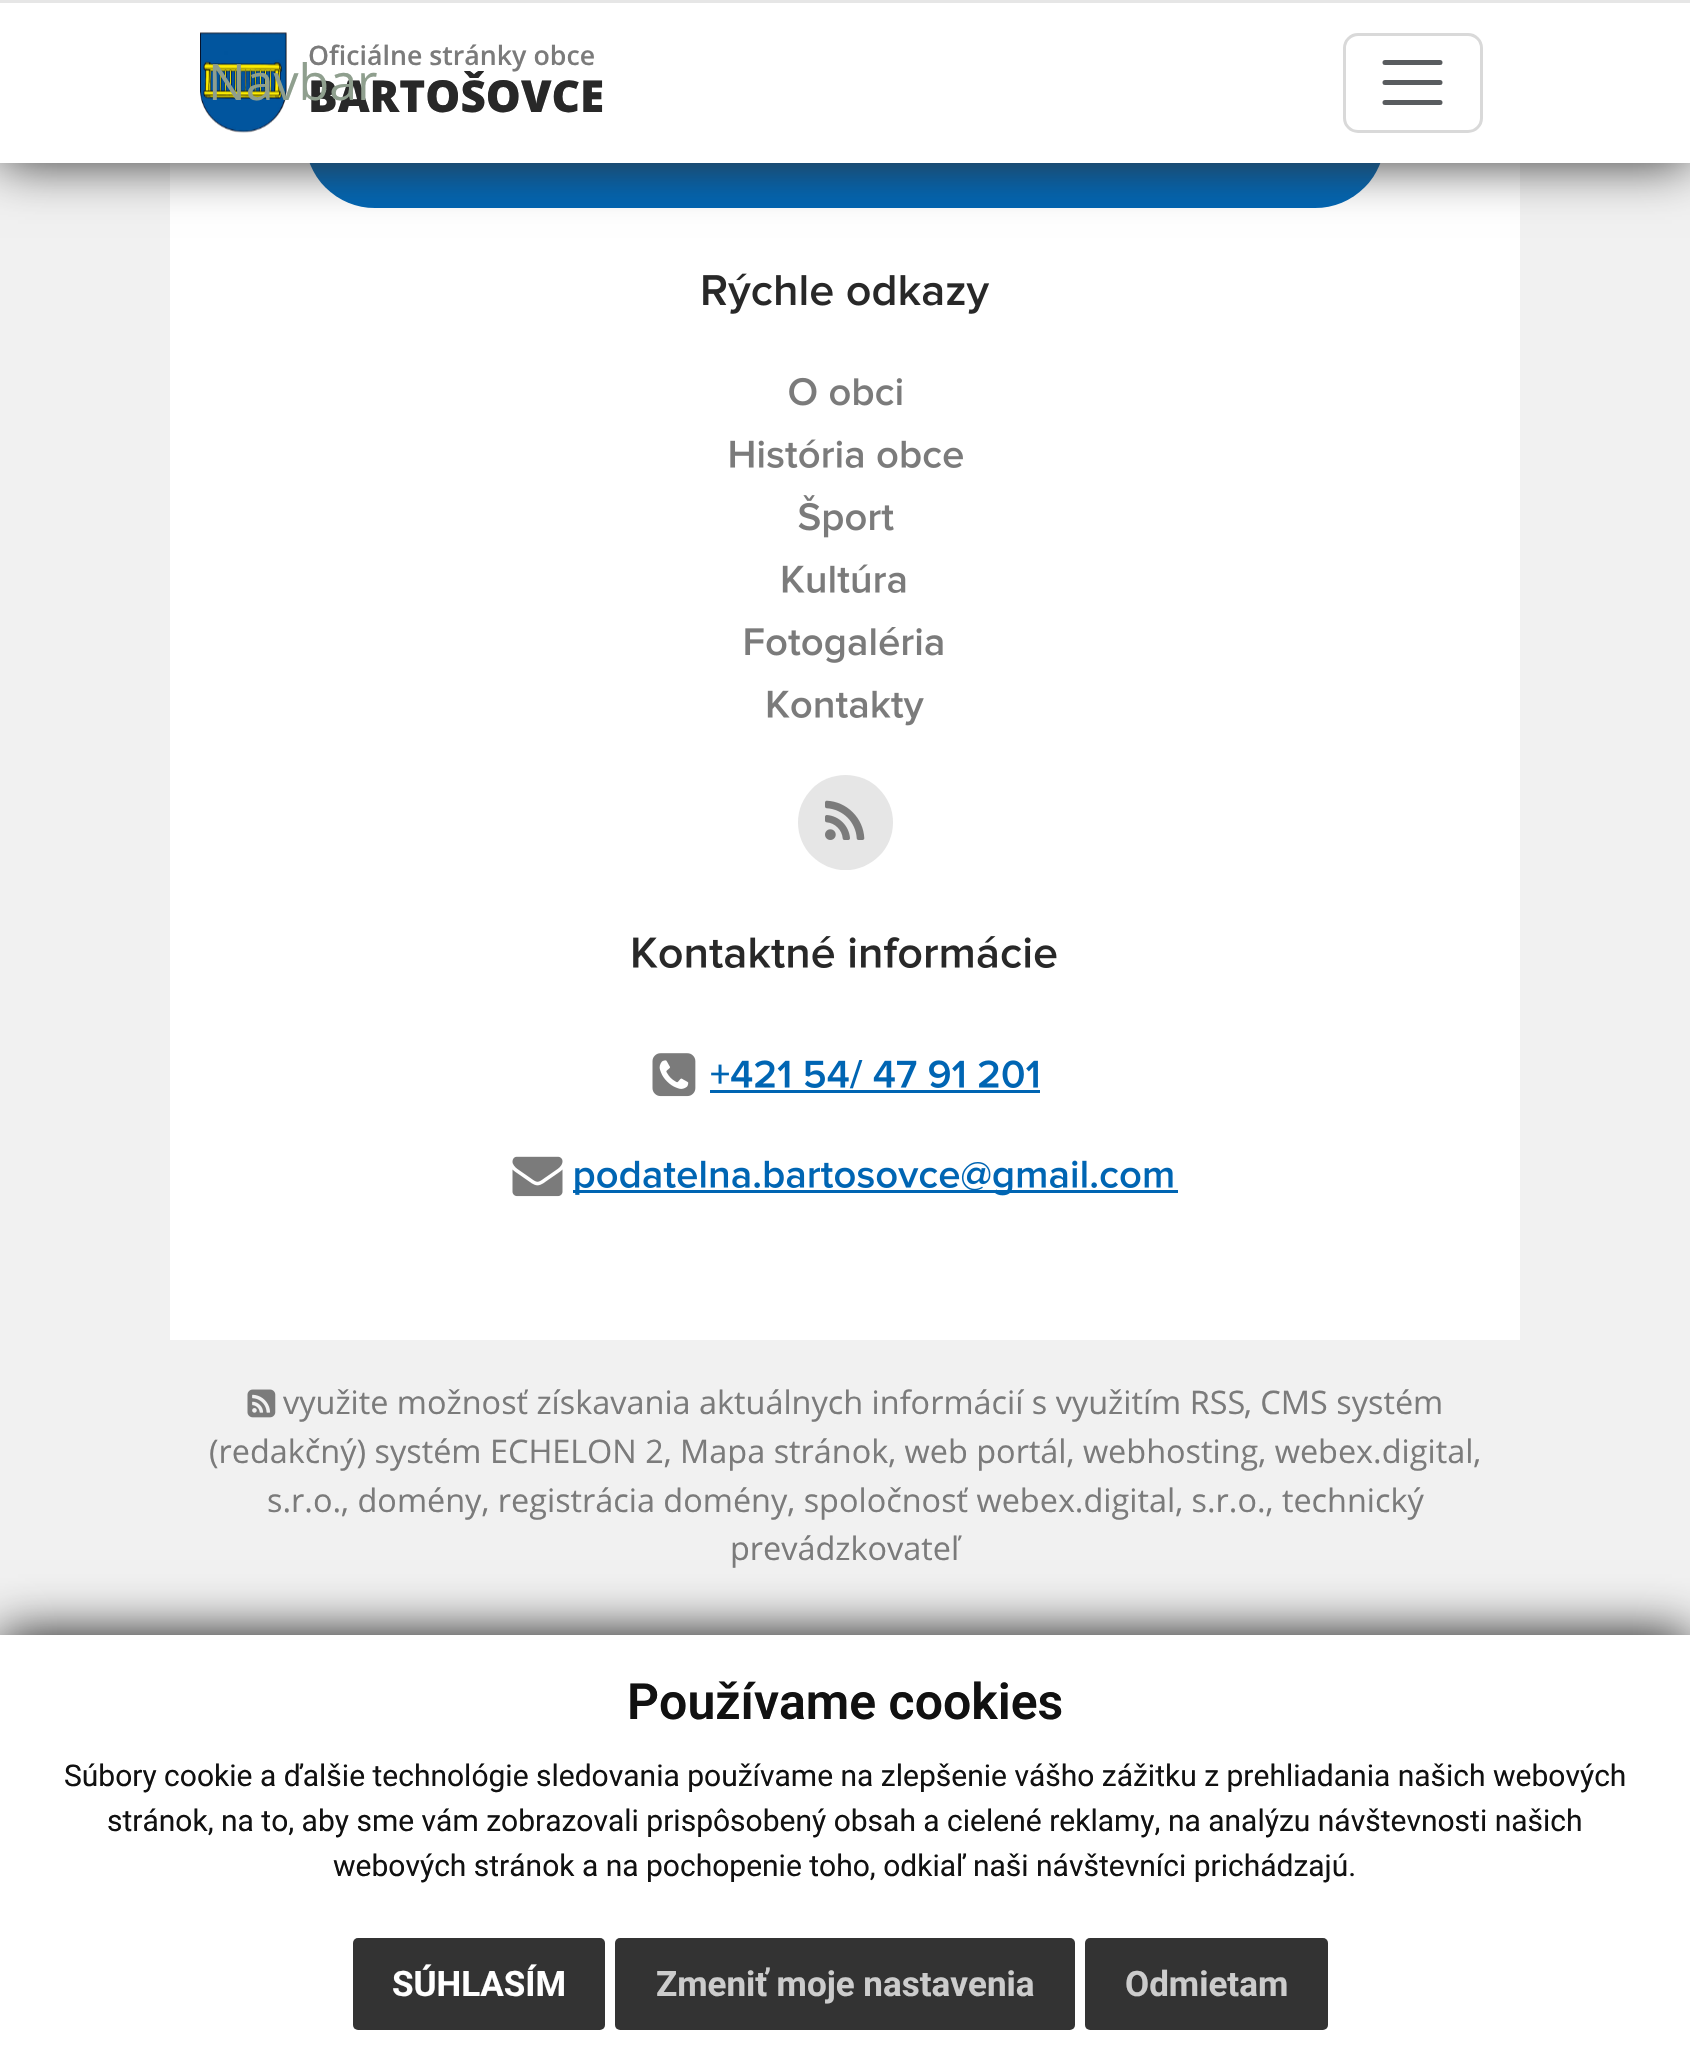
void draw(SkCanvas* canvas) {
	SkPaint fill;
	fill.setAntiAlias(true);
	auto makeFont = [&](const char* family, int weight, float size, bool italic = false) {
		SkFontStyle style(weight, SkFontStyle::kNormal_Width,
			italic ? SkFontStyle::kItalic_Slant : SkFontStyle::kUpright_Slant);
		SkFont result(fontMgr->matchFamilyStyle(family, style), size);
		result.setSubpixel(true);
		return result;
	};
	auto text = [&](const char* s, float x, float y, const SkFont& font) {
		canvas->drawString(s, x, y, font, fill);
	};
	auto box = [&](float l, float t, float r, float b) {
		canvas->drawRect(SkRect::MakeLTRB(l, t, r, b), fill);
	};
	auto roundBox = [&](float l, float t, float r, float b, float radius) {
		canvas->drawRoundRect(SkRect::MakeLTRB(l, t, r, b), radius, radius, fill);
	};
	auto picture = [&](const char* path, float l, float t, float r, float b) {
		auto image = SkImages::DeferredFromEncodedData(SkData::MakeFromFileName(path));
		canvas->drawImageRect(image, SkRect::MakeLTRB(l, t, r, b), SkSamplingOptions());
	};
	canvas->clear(0xFFF1F1F1);
	fill.setColor(0xFFFFFFFF);
	box(170, 163, 1520, 1340);
	fill.setColor(0xFF0065B3);
	roundBox(305, 68, 1385, 208, 70);
	fill.setColor(0xFF333333);
	fill.setMaskFilter(SkMaskFilter::MakeBlur(kNormal_SkBlurStyle, 25));
	canvas->drawRect(SkRect::MakeLTRB(0, 0, 1690, 163), fill);
	fill.setMaskFilter(nullptr);
	fill.setColor(0xFFFFFFFF);
	box(0, 3, 1690, 163);
	fill.setColor(0xFFE6E6E6);
	box(0, 0, 1690, 3);
	fill.setStyle(SkPaint::kStroke_Style);
	fill.setStrokeWidth(3);
	fill.setColor(0xFFD9D9D9);
	canvas->drawRoundRect(SkRect::MakeLTRB(1344.5f, 34.5f, 1481.5f, 131.5f), 13.5f, 13.5f, fill);
	fill.setStrokeWidth(5);
	fill.setStrokeCap(SkPaint::kRound_Cap);
	fill.setColor(0xFF595C5F);
	canvas->drawPath(SkPathBuilder().moveTo(1385, 62.5f).lineTo(1440, 62.5f).moveTo(1385, 82.5f).lineTo(1440, 82.5f).moveTo(1385, 102.5f).lineTo(1440, 102.5f).detach(), fill);
	picture("image0.png", 200, 32, 287, 133);
	picture("image1.png", 703, 273, 990, 314);
	picture("image2.png", 789, 377, 902, 406);
	picture("image3.png", 730, 439, 963, 468);
	picture("image4.png", 798, 495, 894, 538);
	picture("image5.png", 782, 564, 906, 593);
	picture("image6.png", 745, 627, 943, 663);
	picture("image7.png", 767, 690, 924, 726);
	fill.setStyle(SkPaint::kFill_Style);
	fill.setColor(0xFFE6E6E6);
	canvas->drawCircle(845.5f, 822.5f, 47.5f, fill);
	picture("image8.png", 825, 800, 865, 840);
	picture("image9.png", 633, 936, 1057, 968);
	picture("image10.png", 652, 1053, 696, 1097);
	picture("image11.png", 711, 1060, 1038, 1089);
	fill.setColor(0xFF0065B3);
	box(710, 1090, 1040, 1093);
	picture("image12.png", 512, 1156, 563, 1197);
	box(573, 1190, 1178, 1193);
	picture("image13.png", 575, 1160, 1173, 1196);
	picture("image14.png", 247, 1389, 276, 1418);
	fill.setColor(0xFF111111);
	fill.setMaskFilter(SkMaskFilter::MakeBlur(kNormal_SkBlurStyle, 25));
	canvas->drawRect(SkRect::MakeLTRB(0, 1635, 1690, 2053), fill);
	fill.setMaskFilter(nullptr);
	fill.setColor(0xFFFFFFFF);
	box(0, 1635, 1690, 2051);
	fill.setColor(0xFF333333);
	roundBox(353, 1938, 605, 2030, 5);
	roundBox(615, 1938, 1075, 2030, 5);
	roundBox(1085, 1938, 1328, 2030, 5);
	auto font1 = makeFont("Open Sans", 600, 26.75f);
	fill.setColor(0xFF7B7B7B);
	text("Oficiálne stránky obce", 308, 65, font1);
	auto font2 = makeFont("Open Sans", 800, 44);
	fill.setColor(0xFF282828);
	text("BARTOŠOVCE", 308, 112, font2);
	auto font3 = makeFont("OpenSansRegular", 400, 50);
	fill.setColor(0xFF8F9F8E);
	text("Navbar", 208, 100, font3);
	auto font4 = makeFont("OpenSansRegular", 400, 32.4f);
	fill.setColor(0xFF7B7B7B);
	text("využite možnosť získavania aktuálnych informácií s využitím RSS", 283, 1414, font4);
	text(", CMS systém", 1244, 1414, font4);
	text("(redakčný) systém ECHELON 2, Mapa stránok, web portál, webhosting, webex.digital,", 209, 1463, font4);
	text("s.r.o., domény, registrácia domény, spoločnosť webex.digital, s.r.o., technický", 267, 1512, font4);
	text("prevádzkovateľ", 730, 1560, font4);
	auto font5 = makeFont("Roboto", 600, 50);
	fill.setColor(0xFF111111);
	text("Používame cookies", 627, 1719, font5);
	auto font6 = makeFont("Roboto", 400, 30);
	text("Súbory cookie a ďalšie technológie sledovania používame na zlepšenie vášho zážitku z prehliadania našich webových", 64, 1786, font6);
	text("stránok, na to, aby sme vám zobrazovali prispôsobený obsah a cielené reklamy, na analýzu návštevnosti našich", 107, 1831, font6);
	text("webových stránok a na pochopenie toho, odkiaľ naši návštevníci prichádzajú.", 333, 1876, font6);
	auto font7 = makeFont("Roboto", 700, 35);
	fill.setColor(0xFFFFFFFF);
	text("SÚHLASÍM", 392, 1996, font7);
	fill.setColor(0xFFCCCCCC);
	text("Zmeniť moje nastavenia", 656, 1996, font7);
	text("Odmietam", 1125, 1996, font7);
}
